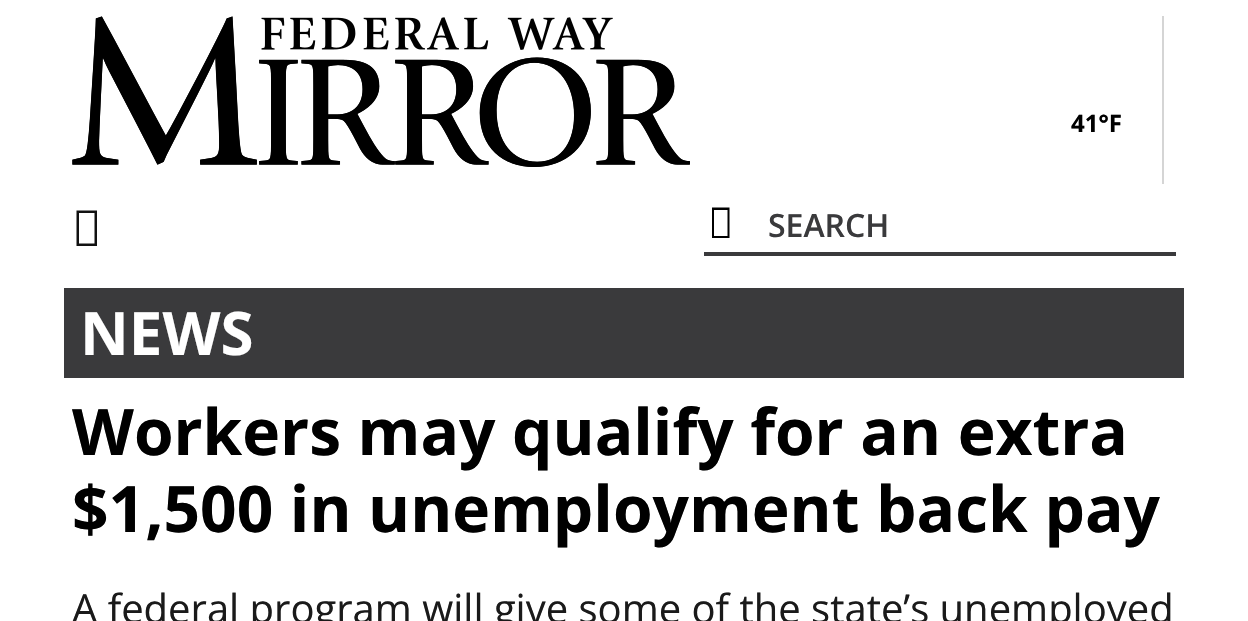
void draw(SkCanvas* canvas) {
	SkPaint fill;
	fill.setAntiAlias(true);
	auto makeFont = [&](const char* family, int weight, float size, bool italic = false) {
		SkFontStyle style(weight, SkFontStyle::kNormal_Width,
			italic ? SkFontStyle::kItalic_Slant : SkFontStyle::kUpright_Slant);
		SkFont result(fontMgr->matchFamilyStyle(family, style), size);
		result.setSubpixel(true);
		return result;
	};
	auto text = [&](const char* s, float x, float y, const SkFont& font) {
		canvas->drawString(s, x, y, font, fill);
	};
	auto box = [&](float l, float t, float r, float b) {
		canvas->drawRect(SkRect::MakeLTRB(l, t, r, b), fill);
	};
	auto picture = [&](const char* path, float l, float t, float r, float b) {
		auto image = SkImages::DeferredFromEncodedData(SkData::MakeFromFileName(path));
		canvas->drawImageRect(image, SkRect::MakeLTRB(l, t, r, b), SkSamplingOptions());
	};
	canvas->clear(0xFFFFFFFF);
	picture("image0.png", 72, 16, 690, 167);
	fill.setColor(0xFFD5D5D5);
	box(1162, 16, 1164, 184);
	fill.setColor(0xFF111111);
	canvas->drawPath(SkPathBuilder().moveTo(76.5f, 246).lineTo(76.5f, 210.5f).lineTo(97, 210.5f).lineTo(97, 246).close().moveTo(79, 243.5f).lineTo(94.5f, 243.5f).lineTo(94.5f, 213).lineTo(79, 213).close().detach(), fill);
	fill.setColor(0xFF000000);
	canvas->drawPath(SkPathBuilder().moveTo(712, 238).lineTo(712, 207.5f).lineTo(729.5f, 207.5f).lineTo(729.5f, 238).close().moveTo(714, 236).lineTo(727.5f, 236).lineTo(727.5f, 210).lineTo(714, 210).close().detach(), fill);
	fill.setColor(0xFF3A3A3C);
	box(704, 252, 1176, 256);
	box(64, 288, 1184, 378);
	auto font1 = makeFont("Open Sans", 700, 24);
	fill.setColor(0xFF000000);
	text("41°F", 1071, 132, font1);
	auto font2 = makeFont("Open Sans", 600, 32);
	fill.setColor(0xFF3A3A3C);
	text("SEARCH", 768, 237, font2);
	auto font3 = makeFont("Open Sans", 700, 60);
	fill.setColor(0xFFFFFFFF);
	text("NEWS", 80, 355, font3);
	auto font4 = makeFont("Open Sans", 700, 64);
	fill.setColor(0xFF000000);
	text("Workers may qualify for an extra", 72, 455, font4);
	text("$1,500 in unemployment back pay", 72, 532, font4);
	auto font5 = makeFont("Open Sans", 400, 40);
	fill.setColor(0xFF1A1A1A);
	text("A federal program will give some of the state’s unemployed", 72, 623, font5);
}
